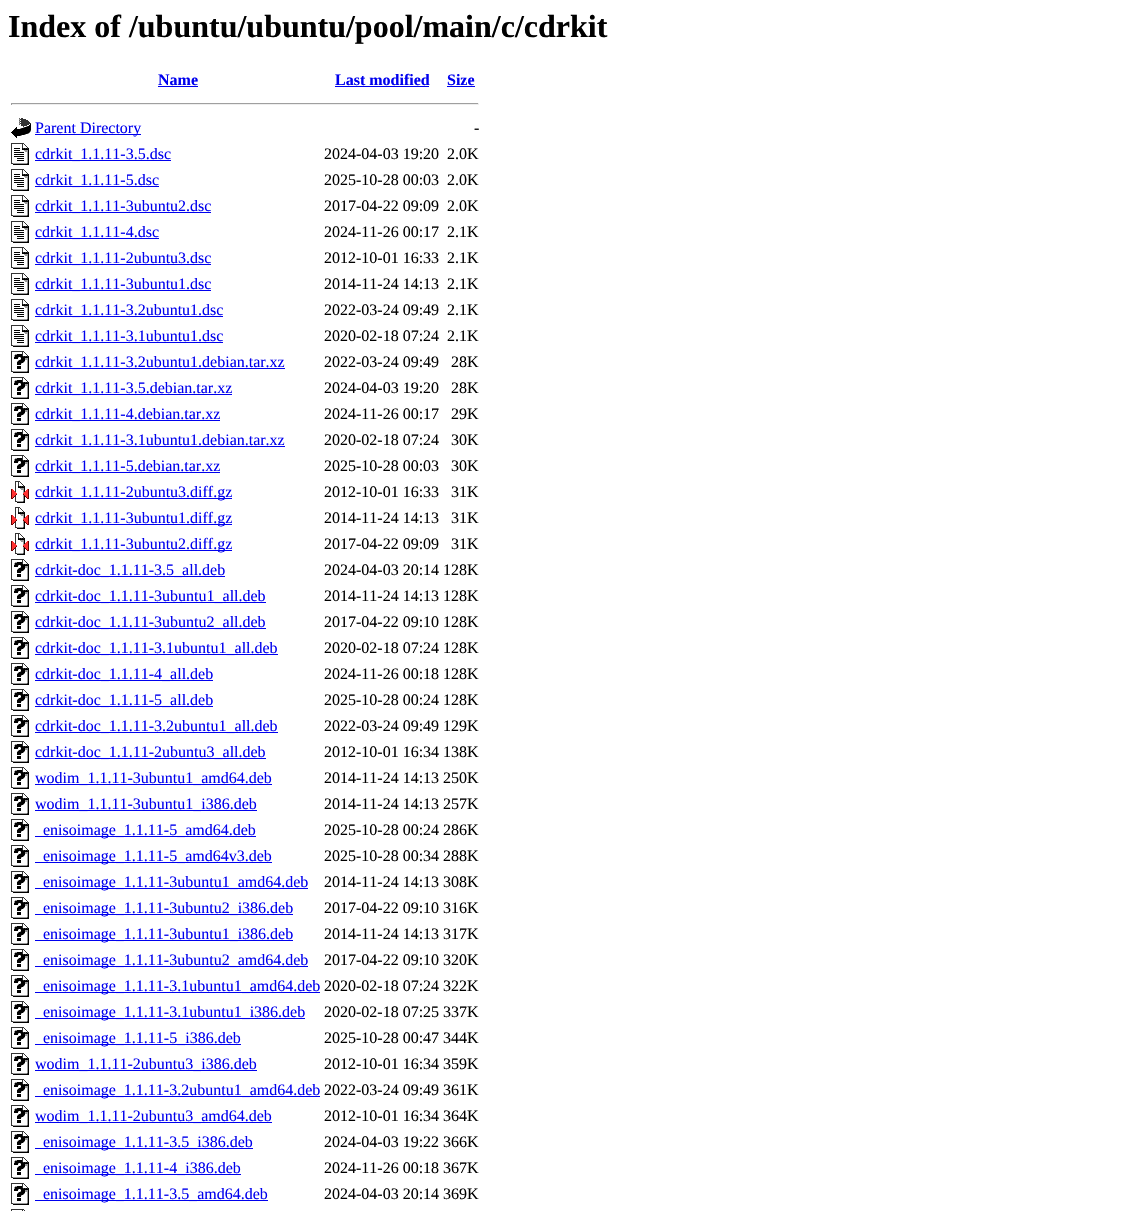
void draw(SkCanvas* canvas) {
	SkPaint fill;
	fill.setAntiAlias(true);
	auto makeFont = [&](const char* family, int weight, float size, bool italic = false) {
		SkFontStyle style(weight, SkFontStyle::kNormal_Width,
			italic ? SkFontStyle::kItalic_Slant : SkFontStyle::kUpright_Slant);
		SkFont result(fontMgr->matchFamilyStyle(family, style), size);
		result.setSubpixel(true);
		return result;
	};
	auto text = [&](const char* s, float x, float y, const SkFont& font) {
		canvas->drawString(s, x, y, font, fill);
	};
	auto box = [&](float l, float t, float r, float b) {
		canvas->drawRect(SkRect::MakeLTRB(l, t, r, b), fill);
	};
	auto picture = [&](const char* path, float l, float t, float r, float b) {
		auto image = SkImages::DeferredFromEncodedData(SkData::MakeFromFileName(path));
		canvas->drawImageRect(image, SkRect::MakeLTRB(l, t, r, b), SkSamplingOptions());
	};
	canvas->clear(0xFFFFFFFF);
	fill.setColor(0xFF0000EE);
	box(158, 86, 198, 87);
	box(335, 86, 429, 87);
	box(447, 86, 475, 87);
	fill.setColor(0xFF9F9F9F);
	box(11, 103, 479, 104);
	fill.setColor(0xFFEEEEEE);
	box(478, 103, 479, 105);
	box(11, 104, 479, 105);
	fill.setColor(0xFF9F9F9F);
	box(11, 103, 12, 105);
	picture("image0.png", 11, 118, 31, 138);
	fill.setColor(0xFF0000EE);
	box(35, 134, 141, 135);
	picture("image1.png", 11, 143, 29, 165);
	box(35, 160, 171, 161);
	picture("image1.png", 11, 169, 29, 191);
	box(35, 186, 159, 187);
	picture("image1.png", 11, 195, 29, 217);
	box(35, 212, 211, 213);
	picture("image1.png", 11, 221, 29, 243);
	box(35, 238, 159, 239);
	picture("image1.png", 11, 247, 29, 269);
	box(35, 264, 211, 265);
	picture("image1.png", 11, 273, 29, 295);
	box(35, 290, 211, 291);
	picture("image1.png", 11, 299, 29, 321);
	box(35, 316, 223, 317);
	picture("image1.png", 11, 325, 29, 347);
	box(35, 342, 223, 343);
	picture("image2.png", 11, 351, 29, 373);
	box(35, 368, 285, 369);
	picture("image2.png", 11, 377, 29, 399);
	box(35, 394, 232, 395);
	picture("image2.png", 11, 403, 29, 425);
	box(35, 420, 220, 421);
	picture("image2.png", 11, 429, 29, 451);
	box(35, 446, 285, 447);
	picture("image2.png", 11, 455, 29, 477);
	box(35, 472, 220, 473);
	picture("image3.png", 11, 481, 29, 503);
	box(35, 498, 232, 499);
	picture("image3.png", 11, 507, 29, 529);
	box(35, 524, 232, 525);
	picture("image3.png", 11, 533, 29, 555);
	box(35, 550, 232, 551);
	picture("image2.png", 11, 559, 29, 581);
	box(35, 576, 225, 577);
	picture("image2.png", 11, 585, 29, 607);
	box(35, 602, 266, 603);
	picture("image2.png", 11, 611, 29, 633);
	box(35, 628, 266, 629);
	picture("image2.png", 11, 637, 29, 659);
	box(35, 654, 278, 655);
	picture("image2.png", 11, 663, 29, 685);
	box(35, 680, 213, 681);
	picture("image2.png", 11, 689, 29, 711);
	box(35, 706, 213, 707);
	picture("image2.png", 11, 715, 29, 737);
	box(35, 732, 278, 733);
	picture("image2.png", 11, 741, 29, 763);
	box(35, 758, 266, 759);
	picture("image2.png", 11, 767, 29, 789);
	box(35, 784, 272, 785);
	picture("image2.png", 11, 793, 29, 815);
	box(35, 810, 257, 811);
	picture("image2.png", 11, 819, 29, 841);
	box(35, 836, 256, 837);
	picture("image2.png", 11, 845, 29, 867);
	box(35, 862, 272, 863);
	picture("image2.png", 11, 871, 29, 893);
	box(35, 888, 308, 889);
	picture("image2.png", 11, 897, 29, 919);
	box(35, 914, 293, 915);
	picture("image2.png", 11, 923, 29, 945);
	box(35, 940, 293, 941);
	picture("image2.png", 11, 949, 29, 971);
	box(35, 966, 308, 967);
	picture("image2.png", 11, 975, 29, 997);
	box(35, 992, 320, 993);
	picture("image2.png", 11, 1001, 29, 1023);
	box(35, 1018, 305, 1019);
	picture("image2.png", 11, 1027, 29, 1049);
	box(35, 1044, 241, 1045);
	picture("image2.png", 11, 1053, 29, 1075);
	box(35, 1070, 257, 1071);
	picture("image2.png", 11, 1079, 29, 1101);
	box(35, 1096, 320, 1097);
	picture("image2.png", 11, 1105, 29, 1127);
	box(35, 1122, 272, 1123);
	picture("image2.png", 11, 1131, 29, 1153);
	box(35, 1148, 253, 1149);
	picture("image2.png", 11, 1157, 29, 1179);
	box(35, 1174, 241, 1175);
	picture("image2.png", 11, 1183, 29, 1205);
	box(35, 1200, 268, 1201);
	picture("image4.png", 11, 1209, 25, 1211);
	auto font1 = makeFont("Liberation Serif", 700, 32);
	fill.setColor(0xFF000000);
	text("Index of /ubuntu/ubuntu/pool/main/c/cdrkit", 8, 37, font1);
	auto font2 = makeFont("Liberation Serif", 700, 16);
	fill.setColor(0xFF0000EE);
	text("Name", 158, 85, font2);
	text("Last modified", 335, 85, font2);
	text("Size", 447, 85, font2);
	auto font3 = makeFont("Liberation Serif", 400, 16);
	text("Parent Directory", 35, 133, font3);
	fill.setColor(0xFF000000);
	text("-", 474, 133, font3);
	fill.setColor(0xFF0000EE);
	text("cdrkit_1.1.11-3.5.dsc", 35, 159, font3);
	fill.setColor(0xFF000000);
	text("2024-04-03 19:20", 324, 159, font3);
	text("2.0K", 447, 159, font3);
	fill.setColor(0xFF0000EE);
	text("cdrkit_1.1.11-5.dsc", 35, 185, font3);
	fill.setColor(0xFF000000);
	text("2025-10-28 00:03", 324, 185, font3);
	text("2.0K", 447, 185, font3);
	fill.setColor(0xFF0000EE);
	text("cdrkit_1.1.11-3ubuntu2.dsc", 35, 211, font3);
	fill.setColor(0xFF000000);
	text("2017-04-22 09:09", 324, 211, font3);
	text("2.0K", 447, 211, font3);
	fill.setColor(0xFF0000EE);
	text("cdrkit_1.1.11-4.dsc", 35, 237, font3);
	fill.setColor(0xFF000000);
	text("2024-11-26 00:17", 324, 237, font3);
	text("2.1K", 447, 237, font3);
	fill.setColor(0xFF0000EE);
	text("cdrkit_1.1.11-2ubuntu3.dsc", 35, 263, font3);
	fill.setColor(0xFF000000);
	text("2012-10-01 16:33", 324, 263, font3);
	text("2.1K", 447, 263, font3);
	fill.setColor(0xFF0000EE);
	text("cdrkit_1.1.11-3ubuntu1.dsc", 35, 289, font3);
	fill.setColor(0xFF000000);
	text("2014-11-24 14:13", 324, 289, font3);
	text("2.1K", 447, 289, font3);
	fill.setColor(0xFF0000EE);
	text("cdrkit_1.1.11-3.2ubuntu1.dsc", 35, 315, font3);
	fill.setColor(0xFF000000);
	text("2022-03-24 09:49", 324, 315, font3);
	text("2.1K", 447, 315, font3);
	fill.setColor(0xFF0000EE);
	text("cdrkit_1.1.11-3.1ubuntu1.dsc", 35, 341, font3);
	fill.setColor(0xFF000000);
	text("2020-02-18 07:24", 324, 341, font3);
	text("2.1K", 447, 341, font3);
	fill.setColor(0xFF0000EE);
	text("cdrkit_1.1.11-3.2ubuntu1.debian.tar.xz", 35, 367, font3);
	fill.setColor(0xFF000000);
	text("2022-03-24 09:49", 324, 367, font3);
	text("28K", 451, 367, font3);
	fill.setColor(0xFF0000EE);
	text("cdrkit_1.1.11-3.5.debian.tar.xz", 35, 393, font3);
	fill.setColor(0xFF000000);
	text("2024-04-03 19:20", 324, 393, font3);
	text("28K", 451, 393, font3);
	fill.setColor(0xFF0000EE);
	text("cdrkit_1.1.11-4.debian.tar.xz", 35, 419, font3);
	fill.setColor(0xFF000000);
	text("2024-11-26 00:17", 324, 419, font3);
	text("29K", 451, 419, font3);
	fill.setColor(0xFF0000EE);
	text("cdrkit_1.1.11-3.1ubuntu1.debian.tar.xz", 35, 445, font3);
	fill.setColor(0xFF000000);
	text("2020-02-18 07:24", 324, 445, font3);
	text("30K", 451, 445, font3);
	fill.setColor(0xFF0000EE);
	text("cdrkit_1.1.11-5.debian.tar.xz", 35, 471, font3);
	fill.setColor(0xFF000000);
	text("2025-10-28 00:03", 324, 471, font3);
	text("30K", 451, 471, font3);
	fill.setColor(0xFF0000EE);
	text("cdrkit_1.1.11-2ubuntu3.diff.gz", 35, 497, font3);
	fill.setColor(0xFF000000);
	text("2012-10-01 16:33", 324, 497, font3);
	text("31K", 451, 497, font3);
	fill.setColor(0xFF0000EE);
	text("cdrkit_1.1.11-3ubuntu1.diff.gz", 35, 523, font3);
	fill.setColor(0xFF000000);
	text("2014-11-24 14:13", 324, 523, font3);
	text("31K", 451, 523, font3);
	fill.setColor(0xFF0000EE);
	text("cdrkit_1.1.11-3ubuntu2.diff.gz", 35, 549, font3);
	fill.setColor(0xFF000000);
	text("2017-04-22 09:09", 324, 549, font3);
	text("31K", 451, 549, font3);
	fill.setColor(0xFF0000EE);
	text("cdrkit-doc_1.1.11-3.5_all.deb", 35, 575, font3);
	fill.setColor(0xFF000000);
	text("2024-04-03 20:14 128K", 324, 575, font3);
	fill.setColor(0xFF0000EE);
	text("cdrkit-doc_1.1.11-3ubuntu1_all.deb", 35, 601, font3);
	fill.setColor(0xFF000000);
	text("2014-11-24 14:13 128K", 324, 601, font3);
	fill.setColor(0xFF0000EE);
	text("cdrkit-doc_1.1.11-3ubuntu2_all.deb", 35, 627, font3);
	fill.setColor(0xFF000000);
	text("2017-04-22 09:10 128K", 324, 627, font3);
	fill.setColor(0xFF0000EE);
	text("cdrkit-doc_1.1.11-3.1ubuntu1_all.deb", 35, 653, font3);
	fill.setColor(0xFF000000);
	text("2020-02-18 07:24 128K", 324, 653, font3);
	fill.setColor(0xFF0000EE);
	text("cdrkit-doc_1.1.11-4_all.deb", 35, 679, font3);
	fill.setColor(0xFF000000);
	text("2024-11-26 00:18 128K", 324, 679, font3);
	fill.setColor(0xFF0000EE);
	text("cdrkit-doc_1.1.11-5_all.deb", 35, 705, font3);
	fill.setColor(0xFF000000);
	text("2025-10-28 00:24 128K", 324, 705, font3);
	fill.setColor(0xFF0000EE);
	text("cdrkit-doc_1.1.11-3.2ubuntu1_all.deb", 35, 731, font3);
	fill.setColor(0xFF000000);
	text("2022-03-24 09:49 129K", 324, 731, font3);
	fill.setColor(0xFF0000EE);
	text("cdrkit-doc_1.1.11-2ubuntu3_all.deb", 35, 757, font3);
	fill.setColor(0xFF000000);
	text("2012-10-01 16:34 138K", 324, 757, font3);
	fill.setColor(0xFF0000EE);
	text("wodim_1.1.11-3ubuntu1_amd64.deb", 35, 783, font3);
	fill.setColor(0xFF000000);
	text("2014-11-24 14:13 250K", 324, 783, font3);
	fill.setColor(0xFF0000EE);
	text("wodim_1.1.11-3ubuntu1_i386.deb", 35, 809, font3);
	fill.setColor(0xFF000000);
	text("2014-11-24 14:13 257K", 324, 809, font3);
	fill.setColor(0xFF0000EE);
	text("enisoimage_1.1.11-5_amd64.deb", 43, 835, font3);
	fill.setColor(0xFF000000);
	text("2025-10-28 00:24 286K", 324, 835, font3);
	fill.setColor(0xFF0000EE);
	text("enisoimage_1.1.11-5_amd64v3.deb", 43, 861, font3);
	fill.setColor(0xFF000000);
	text("2025-10-28 00:34 288K", 324, 861, font3);
	fill.setColor(0xFF0000EE);
	text("enisoimage_1.1.11-3ubuntu1_amd64.deb", 43, 887, font3);
	fill.setColor(0xFF000000);
	text("2014-11-24 14:13 308K", 324, 887, font3);
	fill.setColor(0xFF0000EE);
	text("enisoimage_1.1.11-3ubuntu2_i386.deb", 43, 913, font3);
	fill.setColor(0xFF000000);
	text("2017-04-22 09:10 316K", 324, 913, font3);
	fill.setColor(0xFF0000EE);
	text("enisoimage_1.1.11-3ubuntu1_i386.deb", 43, 939, font3);
	fill.setColor(0xFF000000);
	text("2014-11-24 14:13 317K", 324, 939, font3);
	fill.setColor(0xFF0000EE);
	text("enisoimage_1.1.11-3ubuntu2_amd64.deb", 43, 965, font3);
	fill.setColor(0xFF000000);
	text("2017-04-22 09:10 320K", 324, 965, font3);
	fill.setColor(0xFF0000EE);
	text("enisoimage_1.1.11-3.1ubuntu1_amd64.deb", 43, 991, font3);
	fill.setColor(0xFF000000);
	text("2020-02-18 07:24 322K", 324, 991, font3);
	fill.setColor(0xFF0000EE);
	text("enisoimage_1.1.11-3.1ubuntu1_i386.deb", 43, 1017, font3);
	fill.setColor(0xFF000000);
	text("2020-02-18 07:25 337K", 324, 1017, font3);
	fill.setColor(0xFF0000EE);
	text("enisoimage_1.1.11-5_i386.deb", 43, 1043, font3);
	fill.setColor(0xFF000000);
	text("2025-10-28 00:47 344K", 324, 1043, font3);
	fill.setColor(0xFF0000EE);
	text("wodim_1.1.11-2ubuntu3_i386.deb", 35, 1069, font3);
	fill.setColor(0xFF000000);
	text("2012-10-01 16:34 359K", 324, 1069, font3);
	fill.setColor(0xFF0000EE);
	text("enisoimage_1.1.11-3.2ubuntu1_amd64.deb", 43, 1095, font3);
	fill.setColor(0xFF000000);
	text("2022-03-24 09:49 361K", 324, 1095, font3);
	fill.setColor(0xFF0000EE);
	text("wodim_1.1.11-2ubuntu3_amd64.deb", 35, 1121, font3);
	fill.setColor(0xFF000000);
	text("2012-10-01 16:34 364K", 324, 1121, font3);
	fill.setColor(0xFF0000EE);
	text("enisoimage_1.1.11-3.5_i386.deb", 43, 1147, font3);
	fill.setColor(0xFF000000);
	text("2024-04-03 19:22 366K", 324, 1147, font3);
	fill.setColor(0xFF0000EE);
	text("enisoimage_1.1.11-4_i386.deb", 43, 1173, font3);
	fill.setColor(0xFF000000);
	text("2024-11-26 00:18 367K", 324, 1173, font3);
	fill.setColor(0xFF0000EE);
	text("enisoimage_1.1.11-3.5_amd64.deb", 43, 1199, font3);
	fill.setColor(0xFF000000);
	text("2024-04-03 20:14 369K", 324, 1199, font3);
}
